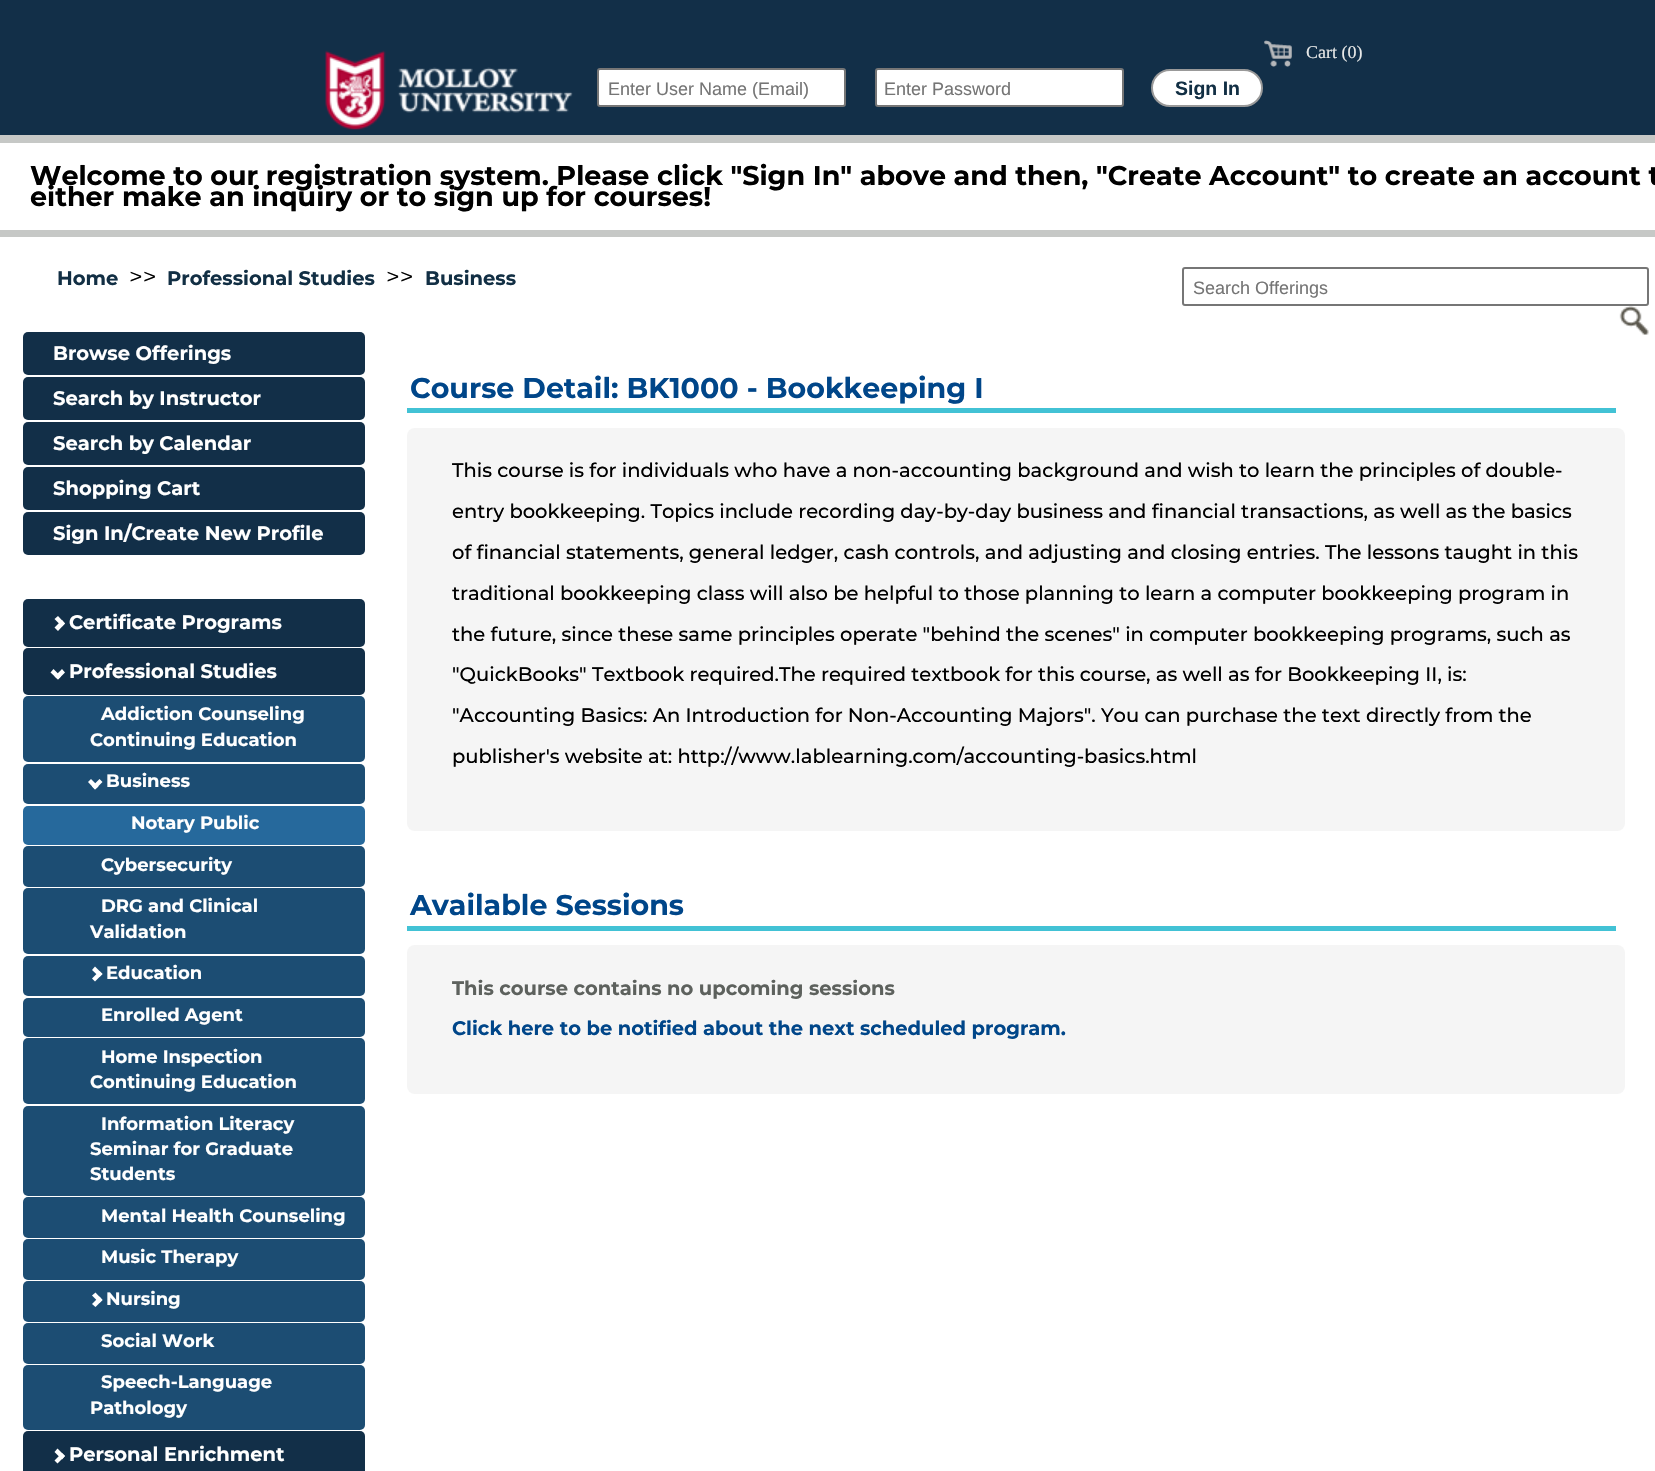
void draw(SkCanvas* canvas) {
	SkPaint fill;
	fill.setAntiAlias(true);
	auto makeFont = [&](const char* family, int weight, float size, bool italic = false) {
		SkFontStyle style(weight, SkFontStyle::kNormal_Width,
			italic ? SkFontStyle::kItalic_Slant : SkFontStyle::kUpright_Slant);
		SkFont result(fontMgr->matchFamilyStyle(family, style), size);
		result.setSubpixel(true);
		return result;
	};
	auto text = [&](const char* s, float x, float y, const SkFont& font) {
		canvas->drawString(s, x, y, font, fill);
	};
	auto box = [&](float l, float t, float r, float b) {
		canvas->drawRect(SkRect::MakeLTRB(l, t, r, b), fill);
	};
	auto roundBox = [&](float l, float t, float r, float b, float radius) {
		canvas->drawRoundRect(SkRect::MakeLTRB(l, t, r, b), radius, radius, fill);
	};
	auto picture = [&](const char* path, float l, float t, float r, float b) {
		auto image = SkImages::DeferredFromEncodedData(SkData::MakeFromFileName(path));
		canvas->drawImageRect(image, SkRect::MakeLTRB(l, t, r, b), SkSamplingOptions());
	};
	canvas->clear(0xFFFFFFFF);
	fill.setColor(0xFF122F48);
	box(0, 0, 1655, 135);
	fill.setColor(0xFFC6C8C6);
	box(0, 135, 1655, 143);
	picture("image0.png", 325, 50, 573, 130);
	fill.setColor(0xFFFFFFFF);
	canvas->drawRoundRect(SkRect::MakeLTRB(598, 69, 845, 106), 2, 2, fill);
	fill.setStyle(SkPaint::kStroke_Style);
	fill.setStrokeWidth(2);
	fill.setColor(0xFF767676);
	canvas->drawRoundRect(SkRect::MakeLTRB(598, 69, 845, 106), 2, 2, fill);
	fill.setStyle(SkPaint::kFill_Style);
	fill.setColor(0xFFFFFFFF);
	canvas->drawRoundRect(SkRect::MakeLTRB(876, 69, 1123, 106), 2, 2, fill);
	fill.setStyle(SkPaint::kStroke_Style);
	fill.setColor(0xFF767676);
	canvas->drawRoundRect(SkRect::MakeLTRB(876, 69, 1123, 106), 2, 2, fill);
	fill.setStyle(SkPaint::kFill_Style);
	fill.setColor(0xFFFFFFFF);
	canvas->drawRoundRect(SkRect::MakeLTRB(1152, 70, 1262, 106), 18, 18, fill);
	fill.setStyle(SkPaint::kStroke_Style);
	fill.setColor(0xFF999999);
	canvas->drawRoundRect(SkRect::MakeLTRB(1152, 70, 1262, 106), 18, 18, fill);
	picture("image1.png", 1264, 40, 1292, 67);
	fill.setStyle(SkPaint::kFill_Style);
	fill.setColor(0xFFC6C8C6);
	box(0, 230, 1655, 237);
	fill.setStyle(SkPaint::kStroke_Style);
	fill.setColor(0xFF767676);
	canvas->drawRoundRect(SkRect::MakeLTRB(1183, 268, 1648, 305), 2, 2, fill);
	picture("image2.png", 1619, 306, 1649, 335);
	fill.setStyle(SkPaint::kFill_Style);
	fill.setColor(0xFF122F48);
	roundBox(23, 332, 365, 375, 5);
	roundBox(23, 377, 365, 420, 5);
	roundBox(23, 422, 365, 465, 5);
	roundBox(23, 467, 365, 510, 5);
	roundBox(23, 512, 365, 555, 5);
	roundBox(23, 599, 365, 647, 5);
	fill.setColor(0xFFFFFFFF);
	canvas->drawPath(SkPathBuilder().moveTo(54.5f, 619).lineTo(58, 616).lineTo(65, 623.5f).lineTo(62, 626.5f).close().detach(), fill);
	fill.setColor(0xFF122F48);
	roundBox(23, 648, 365, 695, 5);
	fill.setColor(0xFFFFFFFF);
	canvas->drawPath(SkPathBuilder().moveTo(54.5f, 627.5f).lineTo(62, 620).lineTo(65, 623.5f).lineTo(58, 631).close().moveTo(62, 669).lineTo(65, 672.5f).lineTo(58, 679.5f).lineTo(54.5f, 676.5f).close().detach(), fill);
	canvas->drawPath(SkPathBuilder().moveTo(53.5f, 669).lineTo(61, 676.5f).lineTo(58, 679.5f).lineTo(50.5f, 672.5f).close().detach(), fill);
	fill.setColor(0xFF1C4D73);
	roundBox(23, 696, 365, 762, 5);
	roundBox(23, 764, 365, 804, 5);
	fill.setColor(0xFFFFFFFF);
	canvas->drawPath(SkPathBuilder().moveTo(99.5f, 779).lineTo(102.5f, 782).lineTo(95, 789.5f).lineTo(92, 786.5f).close().detach(), fill);
	canvas->drawPath(SkPathBuilder().moveTo(91, 779).lineTo(98.5f, 786.5f).lineTo(95, 789.5f).lineTo(88, 782).close().detach(), fill);
	fill.setColor(0xFF26699C);
	roundBox(23, 806, 365, 845, 5);
	fill.setColor(0xFF1C4D73);
	roundBox(23, 846, 365, 887, 5);
	roundBox(23, 888, 365, 954, 5);
	roundBox(23, 956, 365, 996, 5);
	fill.setColor(0xFFFFFFFF);
	canvas->drawPath(SkPathBuilder().moveTo(92, 970).lineTo(95, 966.5f).lineTo(102.5f, 974).lineTo(99.5f, 977).close().detach(), fill);
	canvas->drawPath(SkPathBuilder().moveTo(92, 978.5f).lineTo(99.5f, 971).lineTo(102.5f, 974).lineTo(95, 981.5f).close().detach(), fill);
	fill.setColor(0xFF1C4D73);
	roundBox(23, 998, 365, 1037, 5);
	roundBox(23, 1038, 365, 1104, 5);
	roundBox(23, 1106, 365, 1196, 5);
	roundBox(23, 1197, 365, 1238, 5);
	roundBox(23, 1239, 365, 1280, 5);
	roundBox(23, 1281, 365, 1322, 5);
	fill.setColor(0xFFFFFFFF);
	canvas->drawPath(SkPathBuilder().moveTo(92, 1295.5f).lineTo(95.5f, 1292.5f).lineTo(102.5f, 1300).lineTo(99.5f, 1303).close().detach(), fill);
	canvas->drawPath(SkPathBuilder().moveTo(92, 1304).lineTo(99.5f, 1296.5f).lineTo(102.5f, 1300).lineTo(95.5f, 1307).close().detach(), fill);
	fill.setColor(0xFF1C4D73);
	roundBox(23, 1323, 365, 1364, 5);
	roundBox(23, 1365, 365, 1430, 5);
	fill.setColor(0xFF122F48);
	roundBox(23, 1431, 365, 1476, 5);
	fill.setColor(0xFFFFFFFF);
	canvas->drawPath(SkPathBuilder().moveTo(54.5f, 1452).lineTo(57.5f, 1448.5f).lineTo(65, 1456).lineTo(62, 1459.5f).close().detach(), fill);
	canvas->drawPath(SkPathBuilder().moveTo(54.5f, 1460.5f).lineTo(62, 1453).lineTo(65, 1456).lineTo(57.5f, 1463.5f).close().detach(), fill);
	fill.setColor(0xFF42C2D5);
	box(407, 408, 1616, 413);
	fill.setColor(0xFFF5F5F5);
	roundBox(407, 428, 1625, 831, 8);
	fill.setColor(0xFF42C2D5);
	box(407, 926, 1616, 931);
	fill.setColor(0xFFF5F5F5);
	roundBox(407, 945, 1625, 1094, 8);
	auto font1 = makeFont("Liberation Sans", 400, 18);
	fill.setColor(0xFF757575);
	text("Enter User Name (Email)", 608, 95, font1);
	text("Enter Password", 884, 95, font1);
	auto font2 = makeFont("Liberation Sans", 700, 19.5f);
	fill.setColor(0xFF122F44);
	text("Sign In", 1175, 95, font2);
	auto font3 = makeFont("Liberation Serif", 400, 18);
	fill.setColor(0xFFE8E9E8);
	text("Cart (0)", 1306, 58, font3);
	auto font4 = makeFont("Montserrat", 700, 27);
	fill.setColor(0xFF000000);
	text("Welcome to our registration system. Please click \"Sign In\" above and then, \"Create Account\" to create an account t", 30, 185, font4);
	text("either make an inquiry or to sign up for courses!", 30, 206, font4);
	auto font5 = makeFont("Montserrat", 700, 19.5f);
	fill.setColor(0xFF122F44);
	text("Home", 57, 285, font5);
	auto font6 = makeFont("Montserrat", 400, 24);
	fill.setColor(0xFF000000);
	text(">>", 129, 285, font6);
	fill.setColor(0xFF122F44);
	text("Professional Studies", 167, 285, font5);
	fill.setColor(0xFF000000);
	text(">>", 386, 285, font6);
	fill.setColor(0xFF122F44);
	text("Business", 425, 285, font5);
	fill.setColor(0xFF757575);
	text("Search Offerings", 1193, 294, font1);
	fill.setColor(0xFFFFFFFF);
	text("Browse Offerings", 53, 360, font5);
	text("Search by Instructor", 53, 405, font5);
	text("Search by Calendar", 53, 450, font5);
	text("Shopping Cart", 53, 495, font5);
	text("Sign In/Create New Profile", 53, 540, font5);
	text("Certificate Programs", 69, 629, font5);
	text("Professional Studies", 69, 678, font5);
	auto font7 = makeFont("Montserrat", 700, 18);
	text("Addiction Counseling", 101, 720, font7);
	text("Continuing Education", 90, 746, font7);
	text("Business", 106, 787, font7);
	text("Notary Public", 131, 829, font7);
	text("Cybersecurity", 101, 871, font7);
	text("DRG and Clinical", 101, 912, font7);
	text("Validation", 90, 938, font7);
	text("Education", 106, 979, font7);
	text("Enrolled Agent", 101, 1021, font7);
	text("Home Inspection", 101, 1063, font7);
	text("Continuing Education", 90, 1088, font7);
	text("Information Literacy", 101, 1130, font7);
	text("Seminar for Graduate", 90, 1155, font7);
	text("Students", 90, 1180, font7);
	text("Mental Health Counseling", 101, 1222, font7);
	text("Music Therapy", 101, 1263, font7);
	text("Nursing", 106, 1305, font7);
	text("Social Work", 101, 1347, font7);
	text("Speech-Language", 101, 1388, font7);
	text("Pathology", 90, 1414, font7);
	text("Personal Enrichment", 69, 1461, font5);
	auto font8 = makeFont("Montserrat", 700, 28.5f);
	fill.setColor(0xFF004689);
	text("Course Detail: BK1000 - Bookkeeping I", 410, 398, font8);
	auto font9 = makeFont("Montserrat", 500, 19.5f);
	fill.setColor(0xFF000000);
	text("This course is for individuals who have a non-accounting background and wish to learn the principles of double-", 452, 477, font9);
	text("entry bookkeeping. Topics include recording day-by-day business and financial transactions, as well as the basics", 452, 518, font9);
	text("of financial statements, general ledger, cash controls, and adjusting and closing entries. The lessons taught in this", 452, 559, font9);
	text("traditional bookkeeping class will also be helpful to those planning to learn a computer bookkeeping program in", 452, 600, font9);
	text("the future, since these same principles operate \"behind the scenes\" in computer bookkeeping programs, such as", 452, 641, font9);
	text("\"QuickBooks\" Textbook required.The required textbook for this course, as well as for Bookkeeping II, is:", 452, 681, font9);
	text("\"Accounting Basics: An Introduction for Non-Accounting Majors\". You can purchase the text directly from the", 452, 722, font9);
	text("publisher's website at: http://www.lablearning.com/accounting-basics.html", 452, 763, font9);
	fill.setColor(0xFF004689);
	text("Available Sessions", 410, 915, font8);
	fill.setColor(0xFF5D615D);
	text("This course contains no upcoming sessions", 452, 995, font5);
	fill.setColor(0xFF004689);
	text("Click here to be notified about the next scheduled program.", 452, 1035, font5);
}
